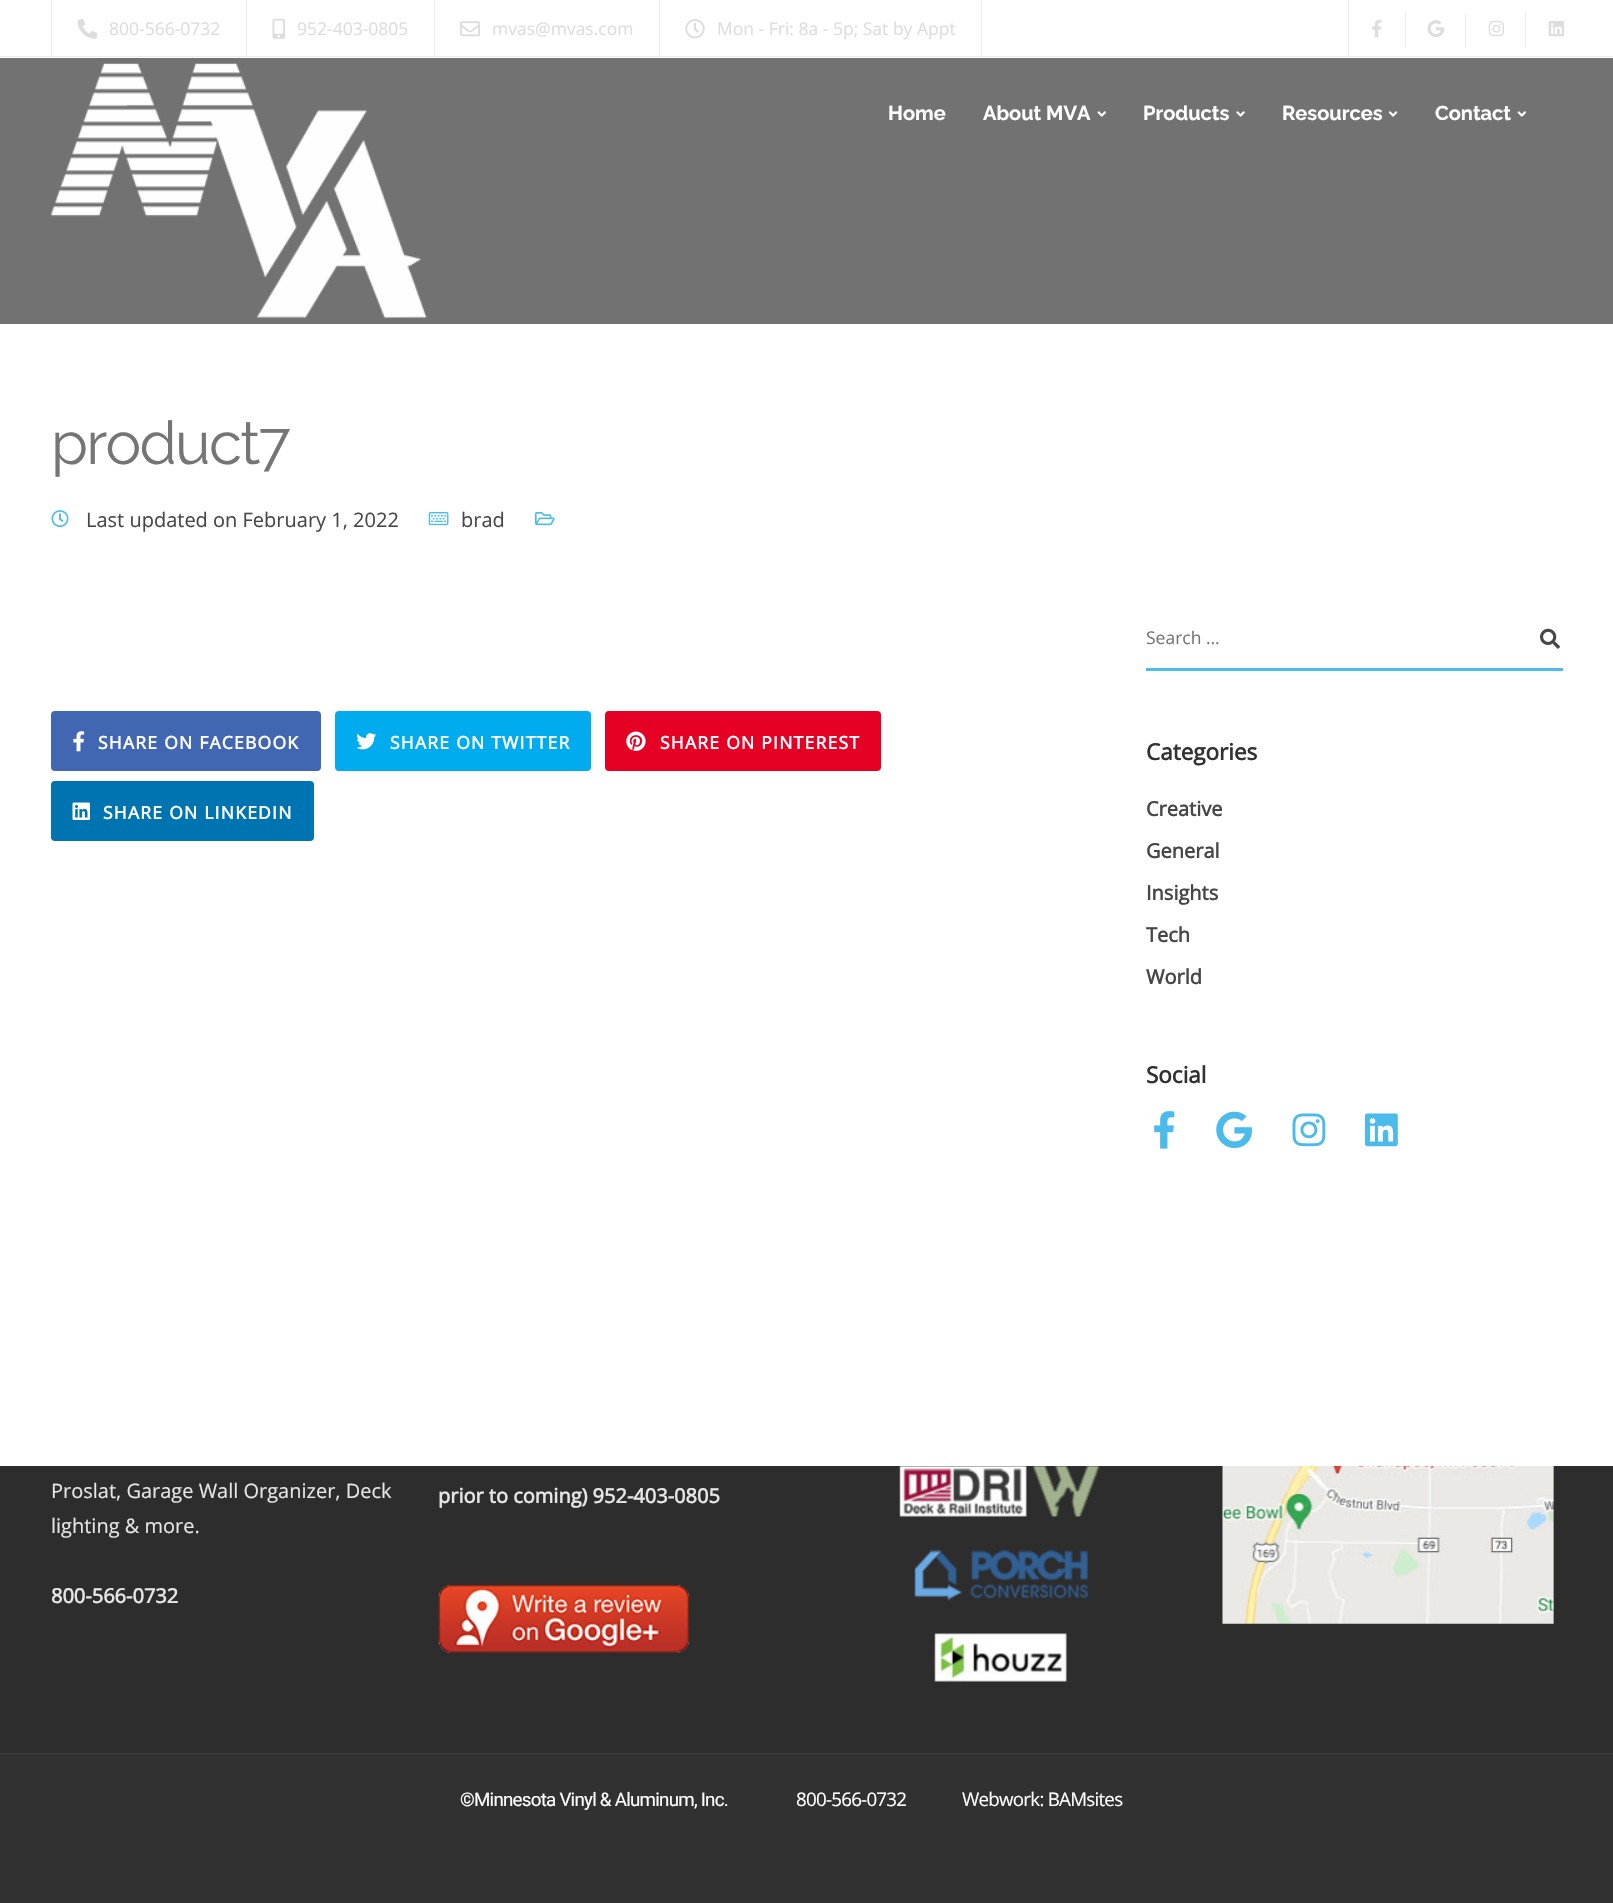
void draw(SkCanvas* canvas) {
	SkPaint fill;
	fill.setAntiAlias(true);
	auto makeFont = [&](const char* family, int weight, float size, bool italic = false) {
		SkFontStyle style(weight, SkFontStyle::kNormal_Width,
			italic ? SkFontStyle::kItalic_Slant : SkFontStyle::kUpright_Slant);
		SkFont result(fontMgr->matchFamilyStyle(family, style), size);
		result.setSubpixel(true);
		return result;
	};
	auto text = [&](const char* s, float x, float y, const SkFont& font) {
		canvas->drawString(s, x, y, font, fill);
	};
	auto spacedText = [&](const char* s, float x, float y, const SkFont& font, const SkPaint& ink, float letter, float word) {
		std::vector<SkGlyphID> glyphs(font.countText(s, strlen(s), SkTextEncoding::kUTF8));
		std::vector<float> xs(glyphs.size());
		font.textToGlyphs(s, strlen(s), SkTextEncoding::kUTF8, glyphs);
		font.getXPos(glyphs, xs, x);
		float extra = 0;
		for (size_t i = 0; i < glyphs.size(); i++) {
			xs[i] += extra;
			extra += letter + word * (glyphs[i] == font.unicharToGlyph(' '));
		}
		canvas->drawTextBlob(SkTextBlob::MakeFromPosHGlyphs(glyphs, xs, y, font), 0, 0, ink);
	};
	auto box = [&](float l, float t, float r, float b) {
		canvas->drawRect(SkRect::MakeLTRB(l, t, r, b), fill);
	};
	auto picture = [&](const char* path, float l, float t, float r, float b) {
		auto image = SkImages::DeferredFromEncodedData(SkData::MakeFromFileName(path));
		canvas->drawImageRect(image, SkRect::MakeLTRB(l, t, r, b), SkSamplingOptions());
	};
	canvas->clear(0xFF2D2D2D);
	fill.setColor(0xFFFFFFFF);
	box(0, 0, 1613, 58);
	fill.setColor(0xFFEDEDED);
	box(0, 56, 1613, 57);
	box(981, 0, 982, 56);
	box(51, 0, 52, 56);
	box(246, 0, 247, 56);
	picture("image0.png", 77, 18, 98, 39);
	box(434, 0, 435, 56);
	picture("image1.png", 272, 18, 285, 39);
	box(659, 0, 660, 56);
	picture("image2.png", 460, 21, 480, 37);
	picture("image3.png", 685, 19, 705, 39);
	box(1348, 0, 1349, 56);
	box(1405, 13, 1406, 48);
	picture("image4.png", 1372, 19, 1382, 38);
	box(1465, 13, 1466, 48);
	picture("image5.png", 1427, 20, 1445, 37);
	box(1525, 13, 1526, 48);
	picture("image6.png", 1488, 21, 1504, 37);
	picture("image7.png", 1548, 21, 1564, 37);
	fill.setColor(0xFF727272);
	box(0, 58, 1613, 324);
	picture("image8.png", 51, 63, 427, 318);
	picture("image9.png", 1097, 111, 1106, 117);
	picture("image10.png", 1236, 111, 1245, 117);
	picture("image11.png", 1388, 111, 1398, 117);
	picture("image9.png", 1517, 111, 1526, 117);
	fill.setColor(0xFFFFFFFF);
	box(0, 324, 1613, 1466);
	picture("image12.png", 51, 510, 69, 528);
	picture("image13.png", 428, 512, 449, 526);
	picture("image14.png", 535, 512, 555, 526);
	fill.setColor(0xFF4267B2);
	canvas->drawRoundRect(SkRect::MakeLTRB(52.5f, 712.5f, 319.5f, 769.5f), 2.5f, 2.5f, fill);
	fill.setStyle(SkPaint::kStroke_Style);
	fill.setStrokeWidth(3);
	canvas->drawRoundRect(SkRect::MakeLTRB(52.5f, 712.5f, 319.5f, 769.5f), 2.5f, 2.5f, fill);
	picture("image15.png", 73, 731, 85, 752);
	fill.setStyle(SkPaint::kFill_Style);
	fill.setColor(0xFF00ACED);
	canvas->drawRoundRect(SkRect::MakeLTRB(336.5f, 712.5f, 589.5f, 769.5f), 2.5f, 2.5f, fill);
	fill.setStyle(SkPaint::kStroke_Style);
	canvas->drawRoundRect(SkRect::MakeLTRB(336.5f, 712.5f, 589.5f, 769.5f), 2.5f, 2.5f, fill);
	picture("image16.png", 356, 733, 377, 750);
	fill.setStyle(SkPaint::kFill_Style);
	fill.setColor(0xFFE60023);
	canvas->drawRoundRect(SkRect::MakeLTRB(606.5f, 712.5f, 879.5f, 769.5f), 2.5f, 2.5f, fill);
	fill.setStyle(SkPaint::kStroke_Style);
	canvas->drawRoundRect(SkRect::MakeLTRB(606.5f, 712.5f, 879.5f, 769.5f), 2.5f, 2.5f, fill);
	picture("image17.png", 626, 731, 646, 751);
	fill.setStyle(SkPaint::kFill_Style);
	fill.setColor(0xFF0073B1);
	canvas->drawRoundRect(SkRect::MakeLTRB(52.5f, 782.5f, 312.5f, 839.5f), 2.5f, 2.5f, fill);
	fill.setStyle(SkPaint::kStroke_Style);
	canvas->drawRoundRect(SkRect::MakeLTRB(52.5f, 782.5f, 312.5f, 839.5f), 2.5f, 2.5f, fill);
	picture("image18.png", 72, 802, 90, 820);
	fill.setStyle(SkPaint::kFill_Style);
	fill.setColor(0xFF4CBBEB);
	box(1146, 668, 1563, 671);
	picture("image19.png", 1540, 628, 1560, 649);
	picture("image20.png", 1154, 1111, 1175, 1149);
	picture("image21.png", 1216, 1111, 1252, 1148);
	picture("image22.png", 1292, 1113, 1326, 1147);
	picture("image23.png", 1365, 1113, 1398, 1147);
	picture("image24.png", 438, 1585, 689, 1653);
	picture("image25.png", 899, 1466, 1027, 1517);
	picture("image26.png", 1032, 1466, 1100, 1517);
	picture("image27.png", 914, 1549, 1088, 1601);
	picture("image28.png", 934, 1633, 1067, 1682);
	picture("image29.png", 1222, 1466, 1554, 1624);
	fill.setColor(0xFF313131);
	box(0, 1754, 1613, 1903);
	fill.setColor(0xFF3F3F3F);
	box(0, 1753, 1613, 1754);
	auto font1 = makeFont("Open Sans", 400, 17.5f);
	fill.setColor(0xFFDDDDDD);
	text("800-566-0732", 109, 35, font1);
	text("952-403-0805", 297, 35, font1);
	text("mvas@mvas.com", 492, 35, font1);
	text("Mon - Fri: 8a - 5p; Sat by Appt", 717, 35, font1);
	auto font2 = makeFont("Raleway", 700, 20);
	fill.setColor(0xFFFFFFFF);
	text("Home", 888, 120, font2);
	text("About MVA", 983, 120, font2);
	text("Products", 1143, 120, font2);
	text("Resources", 1282, 120, font2);
	text("Contact", 1435, 120, font2);
	auto font3 = makeFont("Raleway", 400, 60);
	fill.setColor(0xFF757575);
	spacedText("product7", 51, 464, font3, fill, -1.75f, 0);
	auto font4 = makeFont("Open Sans", 400, 20);
	fill.setColor(0xFF474747);
	text("Last updated on February 1, 2022", 86, 527, font4);
	text("brad", 461, 527, font4);
	auto font5 = makeFont("Open Sans", 700, 17.5f);
	fill.setColor(0xFFFFFFFF);
	spacedText("SHARE ON FACEBOOK", 98, 749, font5, fill, 1.25f, 0);
	spacedText("SHARE ON TWITTER", 390, 749, font5, fill, 1.25f, 0);
	spacedText("SHARE ON PINTEREST", 660, 749, font5, fill, 1.25f, 0);
	spacedText("SHARE ON LINKEDIN", 103, 819, font5, fill, 1.25f, 0);
	fill.setColor(0xFF757575);
	text("Search …", 1146, 644, font1);
	auto font6 = makeFont("Open Sans", 700, 22.5f);
	fill.setColor(0xFF313131);
	text("Categories", 1146, 760, font6);
	auto font7 = makeFont("Open Sans", 700, 20);
	fill.setColor(0xFF474747);
	text("Creative", 1146, 816, font7);
	text("General", 1146, 858, font7);
	text("Insights", 1146, 900, font7);
	text("Tech", 1146, 942, font7);
	text("World", 1146, 984, font7);
	fill.setColor(0xFF313131);
	text("Social", 1146, 1083, font6);
	fill.setColor(0xFFE5E5E5);
	text("Proslat, Garage Wall Organizer, Deck", 51, 1498, font4);
	text("lighting & more.", 51, 1533, font4);
	text("800-566-0732", 51, 1603, font7);
	text("prior to coming) 952-403-0805", 438, 1503, font7);
	auto font8 = makeFont("Roboto", 400, 18.75f);
	fill.setColor(0xFFFFFFFF);
	spacedText("©Minnesota Vinyl & Aluminum, Inc.", 460, 1806, font8, fill, -0.75f, 0);
	auto font9 = makeFont("Open Sans", 400, 18.75f);
	spacedText("800-566-0732", 796, 1806, font9, fill, -0.75f, 0);
	spacedText("Webwork: BAMsites", 962, 1806, font9, fill, -0.75f, 0);
}
